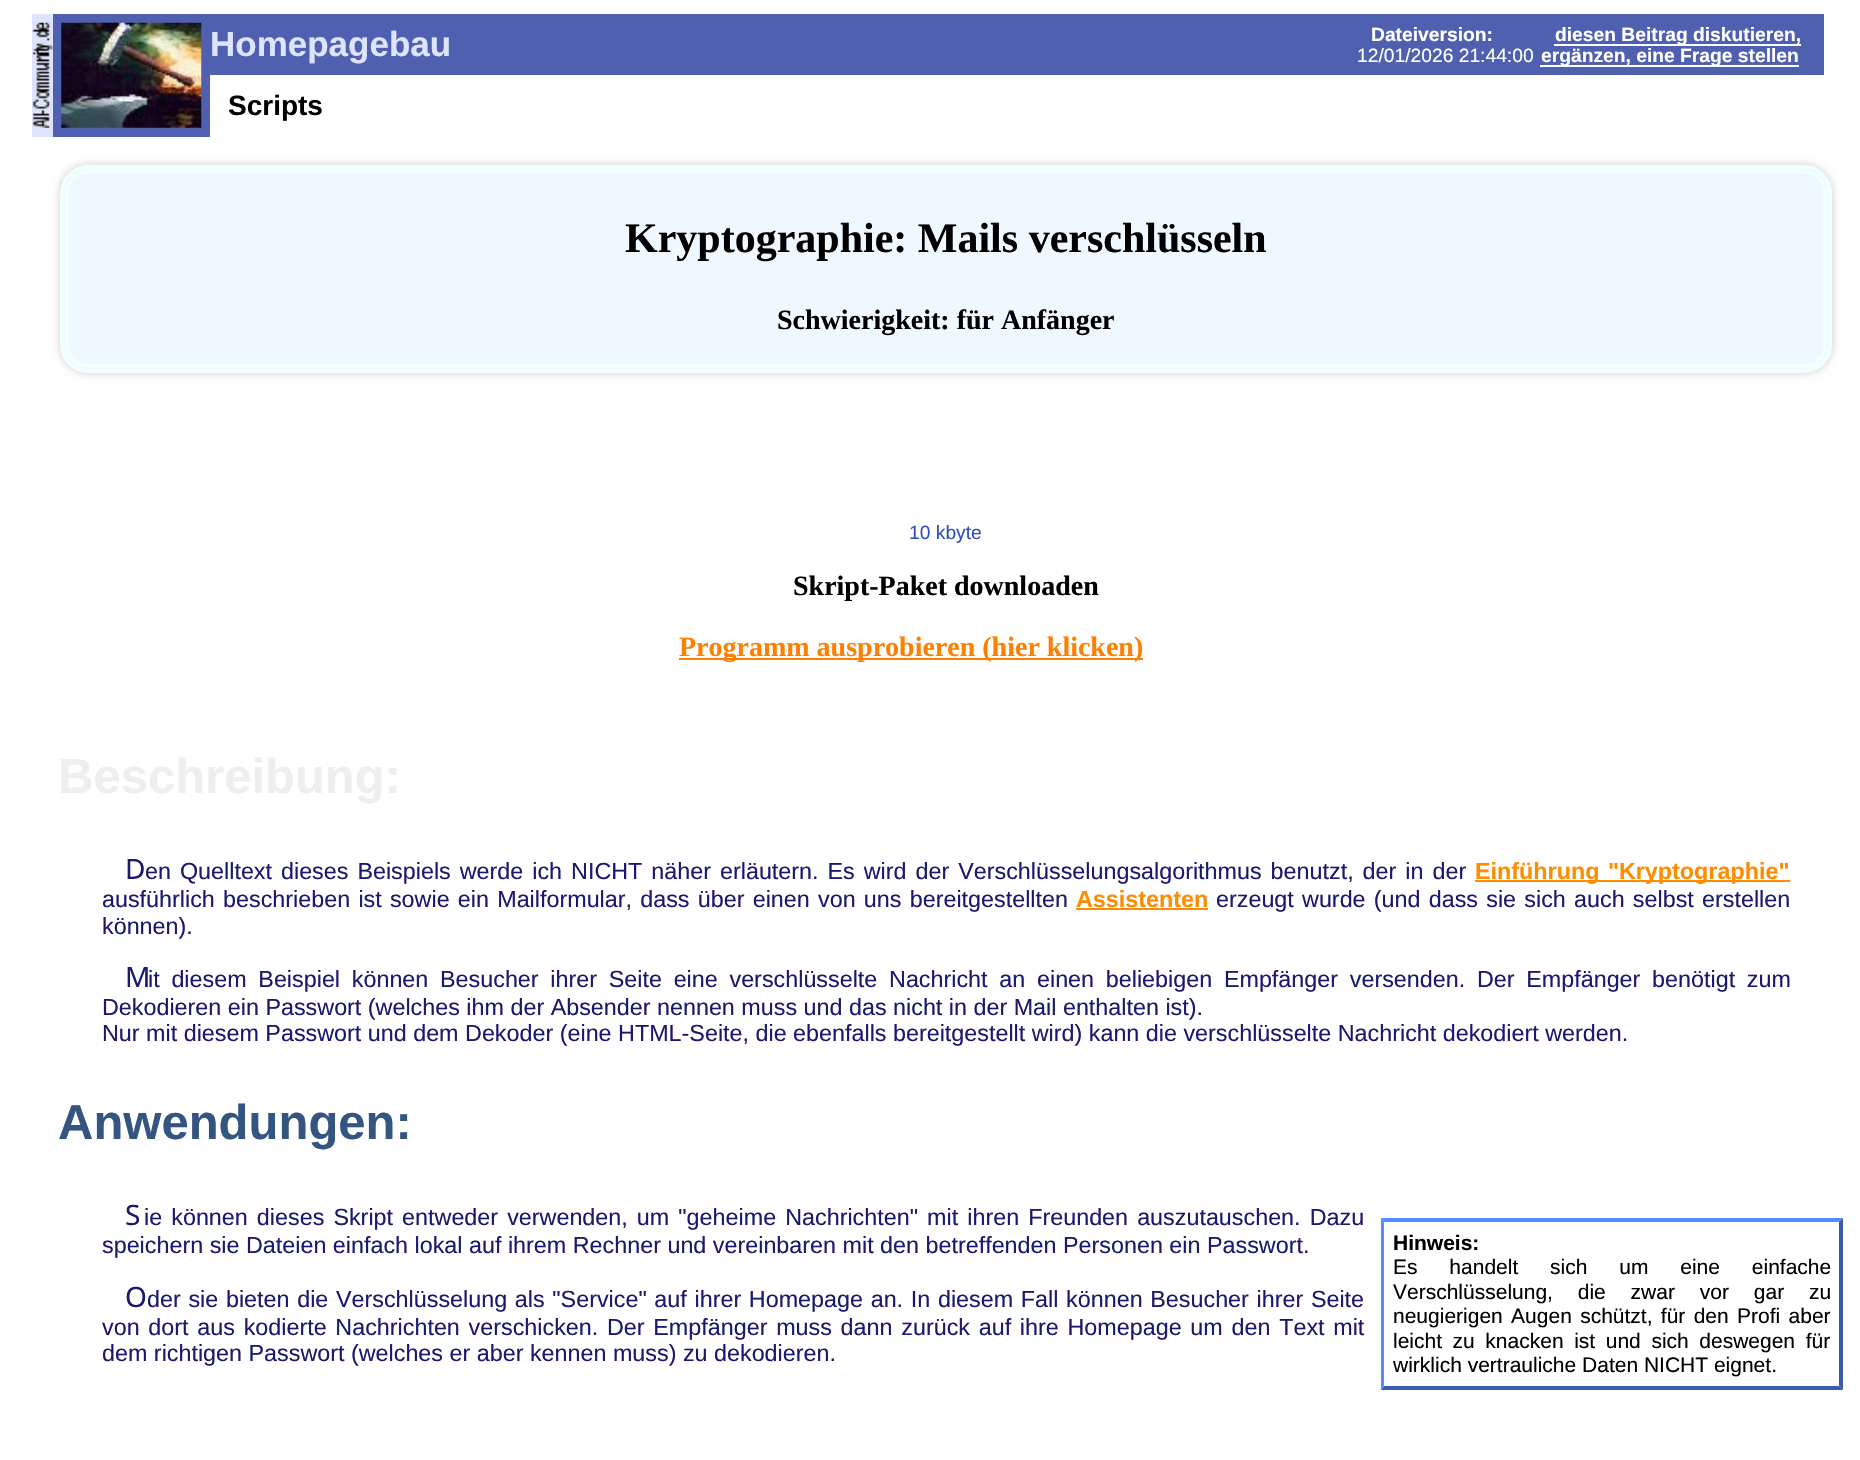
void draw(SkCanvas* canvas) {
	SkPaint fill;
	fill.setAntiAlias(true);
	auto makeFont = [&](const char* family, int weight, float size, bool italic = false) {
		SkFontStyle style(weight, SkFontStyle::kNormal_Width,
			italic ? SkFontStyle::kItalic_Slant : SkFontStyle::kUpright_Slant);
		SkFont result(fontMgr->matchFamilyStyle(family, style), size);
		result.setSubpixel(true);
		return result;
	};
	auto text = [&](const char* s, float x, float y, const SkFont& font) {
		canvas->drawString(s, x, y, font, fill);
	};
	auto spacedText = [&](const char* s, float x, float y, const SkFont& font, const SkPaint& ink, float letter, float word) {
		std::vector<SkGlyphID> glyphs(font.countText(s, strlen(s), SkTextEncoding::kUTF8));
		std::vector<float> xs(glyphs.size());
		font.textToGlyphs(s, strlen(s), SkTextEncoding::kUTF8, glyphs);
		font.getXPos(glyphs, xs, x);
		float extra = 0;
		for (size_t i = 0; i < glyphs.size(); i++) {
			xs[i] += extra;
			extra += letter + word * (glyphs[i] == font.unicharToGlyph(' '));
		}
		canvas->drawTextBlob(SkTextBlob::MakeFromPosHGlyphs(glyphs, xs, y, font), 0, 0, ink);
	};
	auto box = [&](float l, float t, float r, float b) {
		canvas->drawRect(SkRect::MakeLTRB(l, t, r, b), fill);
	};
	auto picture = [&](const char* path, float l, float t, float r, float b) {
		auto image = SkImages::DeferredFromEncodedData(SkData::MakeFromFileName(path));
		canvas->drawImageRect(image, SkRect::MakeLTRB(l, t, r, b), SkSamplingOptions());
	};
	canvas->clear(0xFFFFFFFF);
	fill.setColor(0xFFDEE4FE);
	box(32, 14, 53, 137);
	picture("image0.png", 32, 22, 53, 128);
	fill.setColor(0xFF5060B0);
	box(53, 14, 210, 137);
	picture("image1.png", 61, 22, 202, 128);
	box(210, 14, 1806, 75);
	fill.setColor(0xFFFFFFFF);
	box(1554, 44, 1801, 46);
	box(1540, 65, 1799, 67);
	fill.setColor(0xFF5060B0);
	box(1806, 14, 1824, 75);
	fill.setColor(0xFFCCCCCC);
	fill.setMaskFilter(SkMaskFilter::MakeBlur(kNormal_SkBlurStyle, 4.5f));
	canvas->drawRoundRect(SkRect::MakeLTRB(60, 165, 1832, 373), 28, 28, fill);
	fill.setMaskFilter(nullptr);
	fill.setColor(0xFFF0F8FF);
	canvas->drawRoundRect(SkRect::MakeLTRB(62, 167, 1830, 371), 26, 26, fill);
	fill.setStyle(SkPaint::kStroke_Style);
	fill.setStrokeWidth(4);
	fill.setColor(0xFFF0FFFF);
	canvas->drawRoundRect(SkRect::MakeLTRB(62, 167, 1830, 371), 26, 26, fill);
	canvas->drawRoundRect(SkRect::MakeLTRB(67, 172, 1825, 366), 21, 21, fill);
	fill.setStyle(SkPaint::kFill_Style);
	fill.setColor(0xFFFF8000);
	box(679, 658, 1143, 660);
	fill.setColor(0xFFFF8C00);
	box(1475, 880, 1790, 882);
	box(1076, 908, 1208, 910);
	fill.setColor(0xFF558CFF);
	canvas->drawPath(SkPathBuilder().moveTo(1381, 1218).lineTo(1843, 1218).lineTo(1839, 1222).lineTo(1384, 1222).close().detach(), fill);
	fill.setColor(0xFF395DAA);
	canvas->drawPath(SkPathBuilder().moveTo(1843, 1218).lineTo(1843, 1390).lineTo(1839, 1386).lineTo(1839, 1222).close().detach(), fill);
	canvas->drawPath(SkPathBuilder().moveTo(1843, 1390).lineTo(1381, 1390).lineTo(1384, 1386).lineTo(1839, 1386).close().detach(), fill);
	fill.setColor(0xFF558CFF);
	canvas->drawPath(SkPathBuilder().moveTo(1381, 1390).lineTo(1381, 1218).lineTo(1384, 1222).lineTo(1384, 1386).close().detach(), fill);
	auto font1 = makeFont("Liberation Sans", 700, 35);
	fill.setColor(0xFFDEE4FE);
	text("Homepagebau", 210, 56, font1);
	auto font2 = makeFont("Liberation Sans", 700, 19.25f);
	fill.setColor(0xFFFFFFFF);
	text("Dateiversion:", 1371, 41, font2);
	auto font3 = makeFont("Liberation Sans", 400, 19.25f);
	text("12/01/2026 21:44:00", 1357, 62, font3);
	text("diesen Beitrag diskutieren,", 1555, 41, font2);
	text("ergänzen, eine Frage stellen", 1541, 62, font2);
	auto font4 = makeFont("Liberation Sans", 700, 28);
	fill.setColor(0xFF000000);
	text("Scripts", 228, 115, font4);
	auto font5 = makeFont("Liberation Serif", 700, 42);
	text("Kryptographie: Mails verschlüsseln", 625, 252, font5);
	auto font6 = makeFont("Liberation Serif", 700, 28);
	text("Schwierigkeit: für Anfänger", 777, 329, font6);
	fill.setColor(0xFF2F4EB7);
	text("10 kbyte", 909, 539, font3);
	fill.setColor(0xFF000000);
	text("Skript-Paket downloaden", 793, 595, font6);
	fill.setColor(0xFFFF8000);
	text("Programm ausprobieren (hier klicken)", 679, 656, font6);
	auto font7 = makeFont("Liberation Sans", 700, 49);
	fill.setColor(0xFFEEEEEE);
	text("Beschreibung:", 58, 793, font7);
	auto font8 = makeFont("Noto Sans", 400, 28);
	fill.setColor(0xFF191970);
	text("D", 125, 879, font8);
	auto font9 = makeFont("Liberation Sans", 400, 23.33f);
	spacedText("en Quelltext dieses Beispiels werde ich NICHT näher erläutern. Es wird der Verschlüsselungsalgorithmus benutzt, der in der", 145, 879, font9, fill, 0, 2.5f);
	auto font10 = makeFont("Liberation Sans", 700, 23.33f);
	fill.setColor(0xFFFF8C00);
	spacedText("Einführung \"Kryptographie\"", 1475, 879, font10, fill, 0, 2);
	fill.setColor(0xFF191970);
	spacedText("ausführlich beschrieben ist sowie ein Mailformular, dass über einen von uns bereitgestellten", 102, 907, font9, fill, 0, 1.75f);
	fill.setColor(0xFFFF8C00);
	text("Assistenten", 1076, 907, font10);
	fill.setColor(0xFF191970);
	spacedText("erzeugt wurde (und dass sie sich auch selbst erstellen", 1216, 907, font9, fill, 0, 1.75f);
	text("können).", 102, 934, font9);
	text("M", 125, 987, font8);
	spacedText("it diesem Beispiel können Besucher ihrer Seite eine verschlüsselte Nachricht an einen beliebigen Empfänger versenden. Der Empfänger benötigt zum", 148, 987, font9, fill, 0, 5.25f);
	text("Dekodieren ein Passwort (welches ihm der Absender nennen muss und das nicht in der Mail enthalten ist).", 102, 1015, font9);
	text("Nur mit diesem Passwort und dem Dekoder (eine HTML-Seite, die ebenfalls bereitgestellt wird) kann die verschlüsselte Nachricht dekodiert werden.", 102, 1041, font9);
	fill.setColor(0xFF335580);
	text("Anwendungen:", 58, 1139, font7);
	fill.setColor(0xFF191970);
	text("S", 125, 1225, font8);
	spacedText("ie können dieses Skript entweder verwenden, um \"geheime Nachrichten\" mit ihren Freunden auszutauschen. Dazu", 144, 1225, font9, fill, 0, 2.6f);
	text("speichern sie Dateien einfach lokal auf ihrem Rechner und vereinbaren mit den betreffenden Personen ein Passwort.", 102, 1253, font9);
	text("O", 125, 1307, font8);
	spacedText("der sie bieten die Verschlüsselung als \"Service\" auf ihrer Homepage an. In diesem Fall können Besucher ihrer Seite", 147, 1307, font9, fill, 0, 1.2f);
	spacedText("von dort aus kodierte Nachrichten verschicken. Der Empfänger muss dann zurück auf ihre Homepage um den Text mit", 102, 1335, font9, fill, 0, 2.25f);
	text("dem richtigen Passwort (welches er aber kennen muss) zu dekodieren.", 102, 1361, font9);
	auto font11 = makeFont("Liberation Sans", 700, 21);
	fill.setColor(0xFF000000);
	text("Hinweis:", 1393, 1250, font11);
	auto font12 = makeFont("Liberation Sans", 400, 21);
	spacedText("Es handelt sich um eine einfache", 1393, 1274, font12, fill, 0, 26);
	spacedText("Verschlüsselung, die zwar vor gar zu", 1393, 1299, font12, fill, 0, 19);
	spacedText("neugierigen Augen schützt, für den Profi aber", 1393, 1323, font12, fill, 0, 2.5f);
	spacedText("leicht zu knacken ist und sich deswegen für", 1393, 1348, font12, fill, 0, 4.75f);
	text("wirklich vertrauliche Daten NICHT eignet.", 1393, 1372, font12);
}
